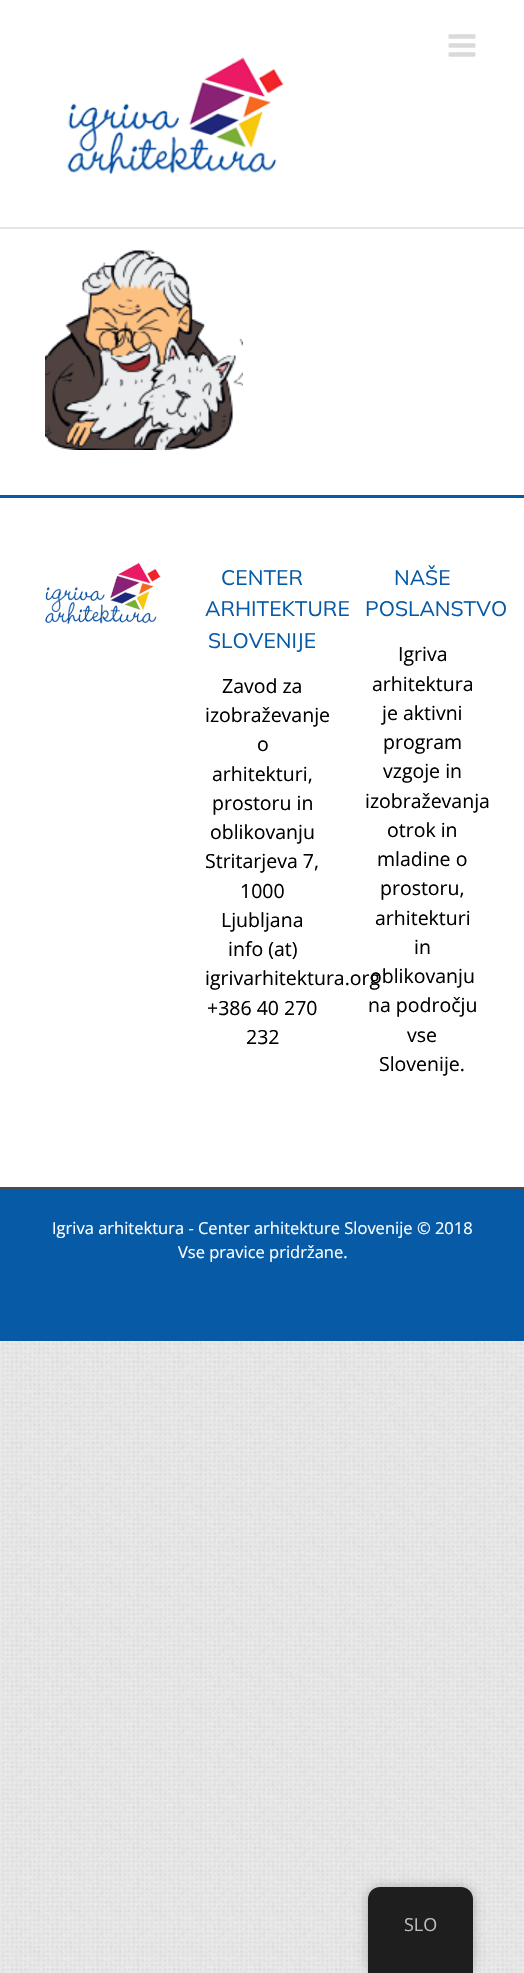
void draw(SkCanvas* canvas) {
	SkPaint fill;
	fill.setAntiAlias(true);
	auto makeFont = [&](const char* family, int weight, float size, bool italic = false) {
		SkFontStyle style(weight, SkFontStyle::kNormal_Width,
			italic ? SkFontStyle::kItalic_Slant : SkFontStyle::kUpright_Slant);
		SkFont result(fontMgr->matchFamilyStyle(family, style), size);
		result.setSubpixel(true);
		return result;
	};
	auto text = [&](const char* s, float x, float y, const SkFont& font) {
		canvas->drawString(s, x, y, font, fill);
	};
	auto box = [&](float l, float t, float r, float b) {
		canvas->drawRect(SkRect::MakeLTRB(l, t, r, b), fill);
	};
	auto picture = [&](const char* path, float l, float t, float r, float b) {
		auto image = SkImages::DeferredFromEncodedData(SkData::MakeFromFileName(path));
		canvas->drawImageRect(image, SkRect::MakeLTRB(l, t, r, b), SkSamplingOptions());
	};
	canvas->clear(0xFFFFFFFF);
	picture("image0.png", 0, 1341, 524, 1973);
	fill.setColor(0xFFE5E5E5);
	box(0, 227, 524, 229);
	picture("image1.png", 448, 34, 476, 57);
	picture("image2.png", 66, 57, 284, 175);
	picture("image3.png", 45, 250, 243, 450);
	fill.setColor(0xFF065AA6);
	box(0, 495, 524, 498);
	picture("image4.png", 45, 562, 161, 624);
	box(0, 1189, 524, 1341);
	fill.setColor(0xFF4B4C4D);
	box(0, 1187, 524, 1189);
	fill.setColor(0x40000000);
	fill.setMaskFilter(SkMaskFilter::MakeBlur(kNormal_SkBlurStyle, 6));
	canvas->drawRoundRect(SkRect::MakeLTRB(368, 1887, 473, 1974), 12, 12, fill);
	fill.setMaskFilter(nullptr);
	fill.setColor(0xFF1E1E1E);
	canvas->drawPath(SkPathBuilder().moveTo(380, 1887).lineTo(461, 1887).cubicTo(467.5f, 1887, 473, 1892.5f, 473, 1899).lineTo(473, 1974).lineTo(368, 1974).lineTo(368, 1899).cubicTo(368, 1892.5f, 373.5f, 1887, 380, 1887).close().detach(), fill);
	auto font1 = makeFont("Mulish", 400, 21);
	fill.setColor(0xFF065AA6);
	text("CENTER", 221, 585, font1);
	text("ARHITEKTURE", 205, 616, font1);
	text("SLOVENIJE", 208, 648, font1);
	auto font2 = makeFont("Open Sans", 400, 19.5f);
	fill.setColor(0xFF000000);
	text("Zavod za", 222, 693, font2);
	text("izobraževanje", 205, 722, font2);
	text("o", 257, 751, font2);
	text("arhitekturi,", 212, 781, font2);
	text("prostoru in", 212, 810, font2);
	text("oblikovanju", 210, 839, font2);
	text("Stritarjeva 7,", 205, 868, font2);
	text("1000", 240, 898, font2);
	text("Ljubljana", 221, 927, font2);
	text("info (at)", 228, 956, font2);
	text("igrivarhitektura.org", 205, 985, font2);
	text("+386 40 270", 207, 1015, font2);
	text("232", 246, 1044, font2);
	fill.setColor(0xFF065AA6);
	text("NAŠE", 394, 585, font1);
	text("POSLANSTVO", 365, 616, font1);
	fill.setColor(0xFF000000);
	text("Igriva", 398, 661, font2);
	text("arhitektura", 372, 691, font2);
	text("je aktivni", 382, 720, font2);
	text("program", 383, 749, font2);
	text("vzgoje in", 383, 778, font2);
	text("izobraževanja", 365, 808, font2);
	text("otrok in", 387, 837, font2);
	text("mladine o", 377, 866, font2);
	text("prostoru,", 380, 895, font2);
	text("arhitekturi", 375, 925, font2);
	text("in", 414, 954, font2);
	text("oblikovanju", 370, 983, font2);
	text("na področju", 368, 1012, font2);
	text("vse", 407, 1042, font2);
	text("Slovenije.", 379, 1071, font2);
	auto font3 = makeFont("Open Sans", 400, 16.5f);
	fill.setColor(0xFFFFFFFF);
	text("Igriva arhitektura - Center arhitekture Slovenije © 2018", 52, 1234, font3);
	text("Vse pravice pridržane.", 178, 1258, font3);
	auto font4 = makeFont("Open Sans", 400, 18);
	fill.setColor(0xFFBDBDBD);
	text("SLO", 404, 1931, font4);
}
